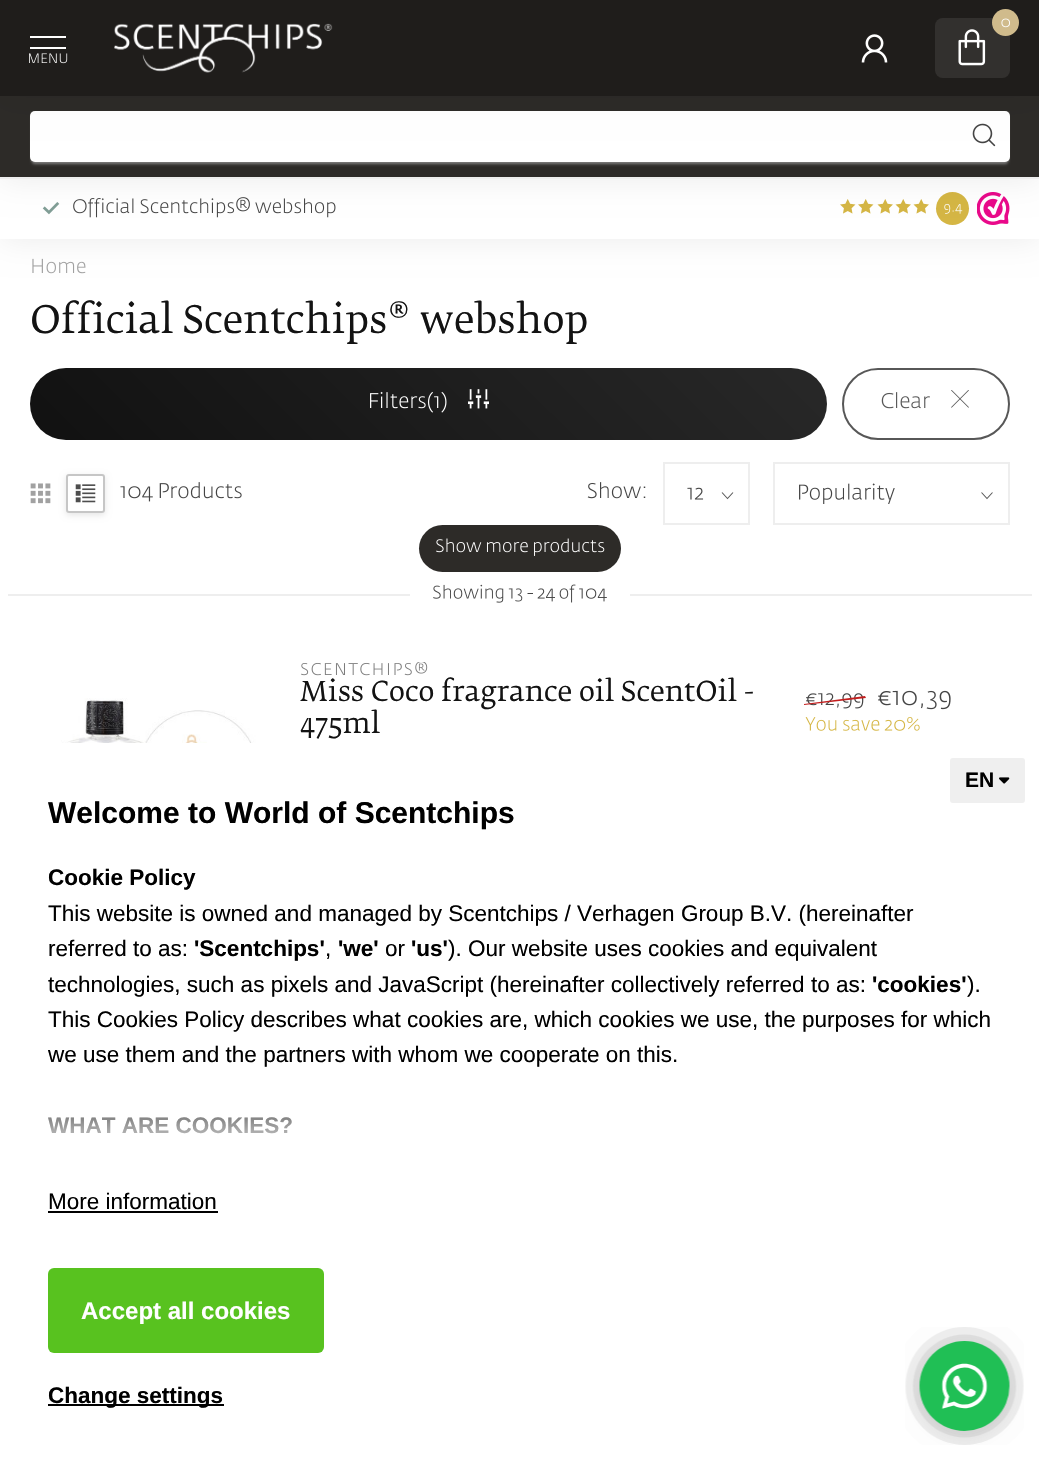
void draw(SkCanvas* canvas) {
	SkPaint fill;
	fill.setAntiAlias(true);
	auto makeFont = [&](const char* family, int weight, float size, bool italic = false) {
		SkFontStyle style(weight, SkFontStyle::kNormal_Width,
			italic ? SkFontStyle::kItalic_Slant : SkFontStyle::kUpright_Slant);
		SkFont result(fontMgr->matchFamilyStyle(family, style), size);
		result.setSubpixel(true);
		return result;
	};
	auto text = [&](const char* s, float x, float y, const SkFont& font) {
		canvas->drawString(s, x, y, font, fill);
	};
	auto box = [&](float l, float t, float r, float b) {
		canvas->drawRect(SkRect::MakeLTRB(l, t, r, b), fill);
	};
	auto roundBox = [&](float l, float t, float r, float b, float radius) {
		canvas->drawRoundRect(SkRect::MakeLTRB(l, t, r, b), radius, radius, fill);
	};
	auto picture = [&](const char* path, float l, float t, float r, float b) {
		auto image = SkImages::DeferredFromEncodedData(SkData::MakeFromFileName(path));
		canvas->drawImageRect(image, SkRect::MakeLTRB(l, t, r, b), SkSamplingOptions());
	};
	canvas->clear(0xFFFFFFFF);
	picture("image12.png", 32, 258, 86, 274);
	fill.setColor(0x14000000);
	fill.setMaskFilter(SkMaskFilter::MakeBlur(kNormal_SkBlurStyle, 16.5f));
	canvas->drawRect(SkRect::MakeLTRB(0, 179, 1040, 239), fill);
	fill.setMaskFilter(nullptr);
	fill.setColor(0xFFFFFFFF);
	box(0, 179, 1039, 239);
	picture("image6.png", 42, 202, 60, 215);
	picture("image7.png", 73, 197, 336, 218);
	picture("image8.png", 840, 199, 856, 214);
	picture("image8.png", 858, 199, 874, 214);
	picture("image9.png", 877, 199, 893, 214);
	picture("image9.png", 895, 199, 911, 214);
	picture("image9.png", 913, 199, 929, 214);
	fill.setColor(0xFFD5B644);
	canvas->drawCircle(952.5f, 208.5f, 16.5f, fill);
	picture("image10.png", 944, 203, 963, 214);
	picture("image11.png", 977, 192, 1010, 225);
	fill.setColor(0x14000000);
	fill.setMaskFilter(SkMaskFilter::MakeBlur(kNormal_SkBlurStyle, 16.5f));
	canvas->drawRect(SkRect::MakeLTRB(0, 96, 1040, 179), fill);
	fill.setMaskFilter(nullptr);
	fill.setColor(0xFF2D2B28);
	box(0, 96, 1039, 177);
	fill.setColor(0xBF9B9B9B);
	fill.setMaskFilter(SkMaskFilter::MakeBlur(kNormal_SkBlurStyle, 1.5f));
	canvas->drawRoundRect(SkRect::MakeLTRB(32, 116, 1008, 164), 3, 3, fill);
	fill.setMaskFilter(nullptr);
	fill.setColor(0xFFFFFFFF);
	roundBox(30, 111, 1010, 162, 5);
	fill.setColor(0x0DFFFFFF);
	box(30, 111, 1010, 162);
	picture("image5.png", 972, 123, 996, 147);
	fill.setColor(0x12000000);
	fill.setMaskFilter(SkMaskFilter::MakeBlur(kNormal_SkBlurStyle, 15));
	canvas->drawRect(SkRect::MakeLTRB(0, 0, 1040, 96), fill);
	fill.setMaskFilter(nullptr);
	fill.setColor(0xFF1F1D1B);
	box(0, 0, 1039, 96);
	fill.setColor(0xFFFFFFFF);
	box(30, 36, 66, 38);
	box(30, 47, 66, 49);
	picture("image0.png", 29, 53, 68, 64);
	picture("image1.png", 114, 23, 333, 73);
	picture("image2.png", 861, 34, 888, 63);
	fill.setColor(0xFF32302E);
	roundBox(935, 18, 1010, 78, 8);
	fill.setColor(0xFFD0BB8C);
	canvas->drawCircle(1005.5f, 22.5f, 13.5f, fill);
	picture("image3.png", 1001, 18, 1010, 28);
	picture("image4.png", 958, 29, 986, 66);
	fill.setColor(0xFFEEEEEE);
	box(0, 177, 1039, 179);
	{
		const SkColor colors[] = {0xFF111111, 0xFF282828};
		const float stops[] = {0, 1};
		const SkPoint ends[] = {{211, 621}, {645, 186}};
		fill.setShader(SkGradientShader::MakeLinear(ends, colors, stops, 2, SkTileMode::kClamp));
		fill.setAlpha(255);
	}
	roundBox(30, 368, 827, 440, 36);
	picture("image13.png", 370, 391, 447, 413);
	picture("image14.png", 468, 389, 489, 409);
	fill.setStyle(SkPaint::kStroke_Style);
	fill.setStrokeWidth(2);
	fill.setShader(nullptr);
	fill.setColor(0xFF575757);
	canvas->drawRoundRect(SkRect::MakeLTRB(843, 369, 1009, 439), 35, 35, fill);
	picture("image15.png", 881, 392, 930, 409);
	picture("image16.png", 951, 390, 969, 408);
	picture("image17.png", 30, 483, 51, 504);
	canvas->save();
	canvas->clipPath(SkPathBuilder(SkPathFillType::kEvenOdd).moveTo(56, 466).lineTo(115, 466).lineTo(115, 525).lineTo(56, 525).close().moveTo(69, 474).lineTo(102, 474).cubicTo(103.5f, 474, 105, 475.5f, 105, 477).lineTo(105, 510).cubicTo(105, 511.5f, 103.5f, 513, 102, 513).lineTo(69, 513).cubicTo(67.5f, 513, 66, 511.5f, 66, 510).lineTo(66, 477).cubicTo(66, 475.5f, 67.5f, 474, 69, 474).close().detach(), true);
	fill.setStyle(SkPaint::kFill_Style);
	fill.setColor(0x1A000000);
	fill.setMaskFilter(SkMaskFilter::MakeBlur(kNormal_SkBlurStyle, 3));
	canvas->drawRoundRect(SkRect::MakeLTRB(66, 476, 105, 515), 3, 3, fill);
	fill.setMaskFilter(nullptr);
	canvas->restore();
	fill.setStyle(SkPaint::kStroke_Style);
	fill.setColor(0xFFC6C6C6);
	canvas->drawRoundRect(SkRect::MakeLTRB(67, 475, 104, 512), 2, 2, fill);
	picture("image18.png", 75, 484, 96, 503);
	picture("image19.png", 120, 486, 153, 502);
	picture("image20.png", 159, 482, 242, 499);
	picture("image21.png", 587, 482, 646, 499);
	fill.setStrokeWidth(1.1f);
	fill.setColor(0xFF595959);
	canvas->drawPath(SkPathBuilder().moveTo(733, 492.5f).lineTo(727.5f, 498.5f).lineTo(722, 492.5f).detach(), fill);
	fill.setStrokeWidth(2);
	fill.setColor(0xFFEEEEEE);
	canvas->drawRect(SkRect::MakeLTRB(664, 463, 749, 524), fill);
	picture("image22.png", 687, 487, 704, 500);
	fill.setStrokeWidth(1.1f);
	fill.setColor(0xFF595959);
	canvas->drawPath(SkPathBuilder().moveTo(992.5f, 492.5f).lineTo(987, 498.5f).lineTo(981.5f, 492.5f).detach(), fill);
	fill.setStrokeWidth(2);
	fill.setColor(0xFFEEEEEE);
	canvas->drawRect(SkRect::MakeLTRB(774, 463, 1009, 524), fill);
	picture("image23.png", 799, 483, 895, 504);
	fill.setStyle(SkPaint::kFill_Style);
	fill.setColor(0xFF2D2B28);
	roundBox(419, 525, 621, 572, 23.5f);
	picture("image24.png", 436, 538, 605, 556);
	fill.setColor(0xFFEEEEEE);
	box(8, 594, 1032, 596);
	fill.setColor(0xFFFFFFFF);
	box(410, 594, 630, 596);
	picture("image25.png", 433, 584, 504, 603);
	picture("image26.png", 508, 588, 523, 602);
	fill.setColor(0xFF444444);
	canvas->drawPath(SkPathBuilder().moveTo(527.5f, 594).lineTo(527.5f, 593).lineTo(533, 593).lineTo(533, 594).close().detach(), fill);
	picture("image27.png", 537, 588, 555, 602);
	picture("image28.png", 559, 584, 607, 603);
	picture("image29.png", 61, 698, 258, 743);
	picture("image30.png", 301, 662, 428, 676);
	picture("image31.png", 806, 693, 864, 709);
	fill.setColor(0xFFC31E1E);
	canvas->drawPath(SkPathBuilder().moveTo(804, 704).lineTo(865, 696).lineTo(866, 698).lineTo(804, 705).close().detach(), fill);
	picture("image32.png", 878, 690, 951, 710);
	picture("image33.png", 805, 717, 920, 731);
	fill.setColor(0xFFEFEFEF);
	roundBox(950, 758, 1025, 803, 3);
	picture("image34.png", 999, 777, 1010, 784);
	fill.setColor(0xFF000000);
	box(48, 1211, 218, 1213);
	fill.setColor(0xFF58C21F);
	roundBox(48, 1268, 324, 1353, 6);
	fill.setColor(0xFF000000);
	box(48, 1404, 224, 1406);
	picture("image35.png", 905, 1327, 1024, 1445);
	auto font1 = makeFont("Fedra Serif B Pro", 400, 37.75f);
	fill.setColor(0xFF131313);
	text("Official Scentchips® webshop", 30, 333, font1);
	auto font2 = makeFont("Fedra Serif B Pro", 400, 27.25f);
	text("Miss Coco fragrance oil ScentOil -", 300, 701, font2);
	text("475ml", 300, 733, font2);
	auto font3 = makeFont("Liberation Sans", 700, 21);
	fill.setColor(0xFF000000);
	text("EN", 965, 787, font3);
	auto font4 = makeFont("Liberation Sans", 700, 30);
	text("Welcome to World of Scentchips", 48, 823, font4);
	auto font5 = makeFont("Liberation Sans", 700, 22.5f);
	text("Cookie Policy", 48, 885, font5);
	auto font6 = makeFont("Liberation Sans", 400, 22.5f);
	text("This website is owned and managed by Scentchips / Verhagen Group B.V. (hereinafter", 48, 921, font6);
	text("referred to as:", 48, 956, font6);
	text("'Scentchips'", 194, 956, font5);
	text(",", 325, 956, font6);
	text("'we'", 338, 956, font5);
	text("or", 385, 956, font6);
	text("'us'", 411, 956, font5);
	text("). Our website uses cookies and equivalent", 448, 956, font6);
	text("technologies, such as pixels and JavaScript (hereinafter collectively referred to as:", 48, 992, font6);
	text("'cookies'", 872, 992, font5);
	text(").", 967, 992, font6);
	text("This Cookies Policy describes what cookies are, which cookies we use, the purposes for which", 48, 1027, font6);
	text("we use them and the partners with whom we cooperate on this.", 48, 1062, font6);
	text("WHAT ARE COOKIES?", 48, 1133, font5);
	{
		const SkColor colors[] = {0x00FFFFFF, 0xFFFFFFFF};
		const float stops[] = {0, 1};
		const SkPoint ends[] = {{520, 1071}, {520, 1161}};
		fill.setShader(SkGradientShader::MakeLinear(ends, colors, stops, 2, SkTileMode::kClamp));
		fill.setAlpha(255);
	}
	box(48, 1117, 292, 1134);
	fill.setShader(nullptr);
	fill.setColor(0xFF000000);
	text("More information", 48, 1209, font6);
	auto font7 = makeFont("Liberation Sans", 700, 24);
	fill.setColor(0xFFFFFFFF);
	text("Accept all cookies", 81, 1319, font7);
	fill.setColor(0xFF000000);
	text("Change settings", 48, 1403, font5);
}
